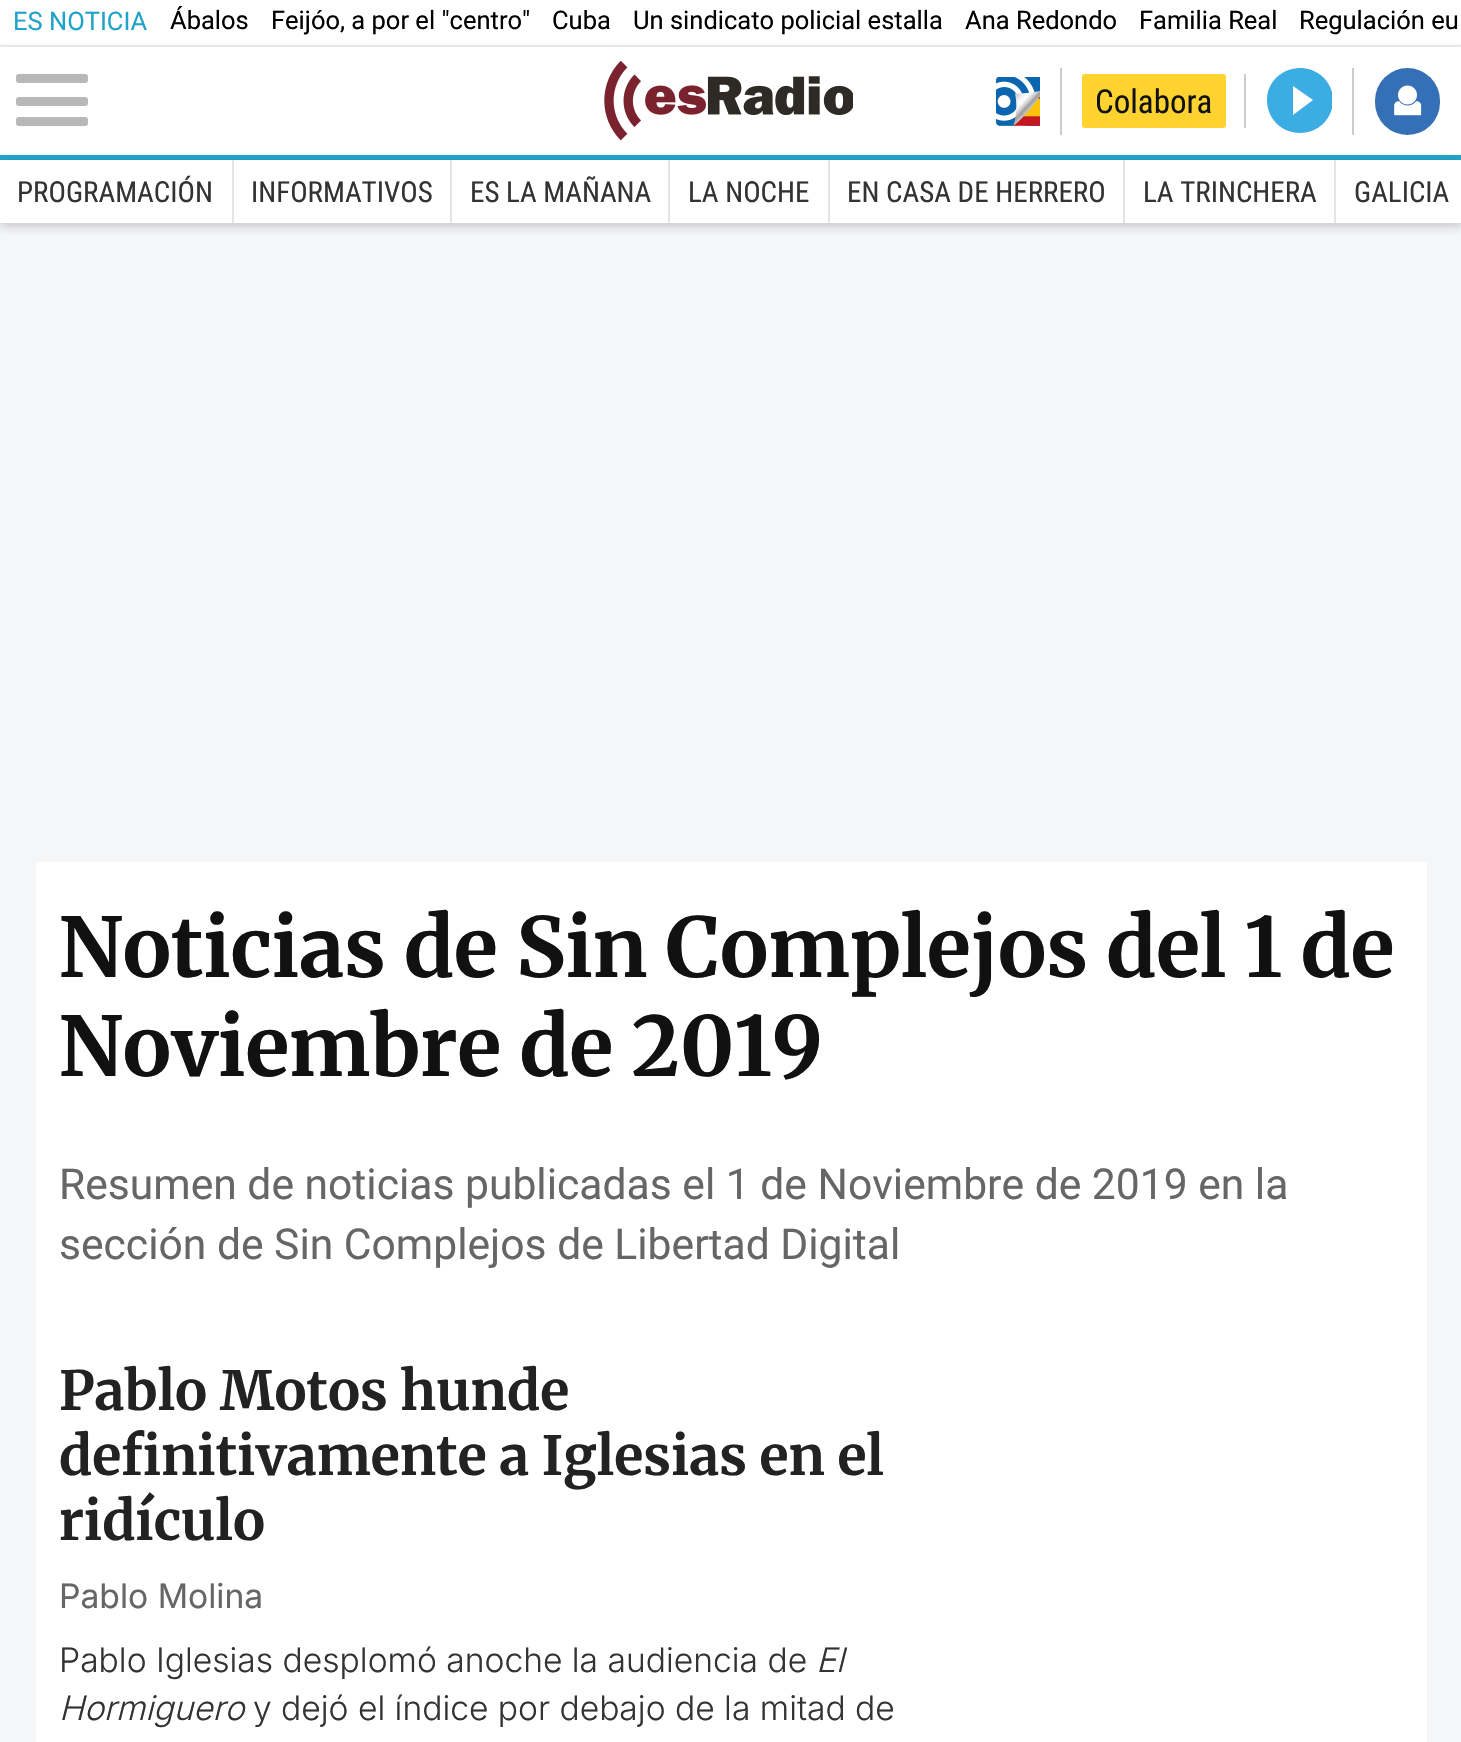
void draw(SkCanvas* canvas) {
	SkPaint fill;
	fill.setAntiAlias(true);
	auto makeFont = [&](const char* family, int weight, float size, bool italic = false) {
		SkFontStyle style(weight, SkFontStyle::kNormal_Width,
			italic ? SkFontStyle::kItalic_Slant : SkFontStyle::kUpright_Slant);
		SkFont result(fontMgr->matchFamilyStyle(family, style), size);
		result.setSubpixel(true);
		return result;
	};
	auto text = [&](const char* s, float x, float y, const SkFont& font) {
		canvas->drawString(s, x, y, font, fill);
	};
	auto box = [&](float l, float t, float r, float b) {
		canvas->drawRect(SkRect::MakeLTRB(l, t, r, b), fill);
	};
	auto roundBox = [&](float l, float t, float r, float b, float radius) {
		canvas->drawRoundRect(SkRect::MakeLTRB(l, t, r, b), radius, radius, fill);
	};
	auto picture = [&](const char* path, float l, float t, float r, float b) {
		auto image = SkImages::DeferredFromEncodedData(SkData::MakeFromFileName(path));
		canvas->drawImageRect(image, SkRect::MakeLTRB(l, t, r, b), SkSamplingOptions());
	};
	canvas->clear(0xFFF5F6F8);
	fill.setColor(0xFFFFFFFF);
	box(0, 0, 1461, 45);
	fill.setColor(0xFFECF0F1);
	box(0, 45, 1461, 47);
	fill.setColor(0x70323232);
	fill.setMaskFilter(SkMaskFilter::MakeBlur(kNormal_SkBlurStyle, 4.5f));
	canvas->drawRect(SkRect::MakeLTRB(0, 52, 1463, 164), fill);
	fill.setMaskFilter(nullptr);
	fill.setColor(0xFFFFFFFF);
	box(0, 47, 1461, 155);
	fill.setColor(0xFF21A3C9);
	box(0, 155, 1461, 160);
	fill.setColor(0xFFB8B8B8);
	roundBox(16, 74, 88, 83, 3);
	roundBox(16, 97, 88, 106, 3);
	roundBox(16, 117, 88, 126, 3);
	picture("image0.png", 604, 61, 853, 141);
	fill.setColor(0xFFCCCCCC);
	box(1060, 68, 1062, 135);
	picture("image1.png", 995, 77, 1040, 126);
	box(1244, 74, 1246, 128);
	fill.setColor(0xFFFED330);
	roundBox(1082, 74, 1226, 128, 3);
	fill.setColor(0xFFCCCCCC);
	box(1352, 68, 1354, 135);
	canvas->save();
	canvas->clipRect(SkRect::MakeLTRB(1267, 68, 1332, 135));
	fill.setColor(0xFF3BADE3);
	canvas->drawPath(SkPathBuilder().moveTo(1300, 68).cubicTo(1282, 68, 1267, 82, 1267, 100).cubicTo(1267, 119, 1282, 133, 1300, 133).cubicTo(1318, 133, 1333, 119, 1333, 100).cubicTo(1333, 82, 1318, 68, 1300, 68).close().moveTo(1293, 115).lineTo(1293, 86).lineTo(1313, 100).close().detach(), fill);
	canvas->restore();
	fill.setColor(0xFF3570B6);
	roundBox(1375, 68, 1440, 135, 32.5f);
	picture("image2.png", 1394, 85, 1422, 116);
	fill.setColor(0x38323232);
	fill.setMaskFilter(SkMaskFilter::MakeBlur(kNormal_SkBlurStyle, 4.5f));
	canvas->drawRect(SkRect::MakeLTRB(0, 164, 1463, 227), fill);
	fill.setMaskFilter(nullptr);
	fill.setColor(0xFFFFFFFF);
	box(0, 160, 1461, 223);
	fill.setColor(0xFFE5E5E5);
	box(232, 160, 234, 223);
	box(450, 160, 452, 223);
	box(668, 160, 670, 223);
	box(828, 160, 830, 223);
	box(1123, 160, 1125, 223);
	box(1334, 160, 1336, 223);
	fill.setColor(0xFFFFFFFF);
	box(36, 862, 1427, 1742);
	auto font1 = makeFont("Roboto", 400, 25.5f);
	fill.setColor(0xFF21A3C9);
	text("ES NOTICIA", 13, 30, font1);
	fill.setColor(0xFF000000);
	text("Ábalos", 170, 29, font1);
	text("Feijóo, a por el \"centro\"", 271, 29, font1);
	text("Cuba", 552, 29, font1);
	text("Un sindicato policial estalla", 633, 29, font1);
	text("Ana Redondo", 965, 29, font1);
	text("Familia Real", 1139, 29, font1);
	text("Regulación eu", 1299, 29, font1);
	auto font2 = makeFont("Roboto Condensed", 400, 33);
	fill.setColor(0xFF111111);
	text("Colabora", 1095, 113, font2);
	auto font3 = makeFont("Roboto Condensed", 400, 29);
	fill.setColor(0xFF333333);
	text("PROGRAMACIÓN", 17, 202, font3);
	text("INFORMATIVOS", 251, 202, font3);
	text("ES LA MAÑANA", 470, 202, font3);
	text("LA NOCHE", 688, 202, font3);
	text("EN CASA DE HERRERO", 847, 202, font3);
	text("LA TRINCHERA", 1143, 202, font3);
	text("GALICIA", 1354, 202, font3);
	auto font4 = makeFont("Merriweather", 700, 82.25f);
	fill.setColor(0xFF111111);
	text("Noticias de Sin Complejos del 1 de", 59, 977, font4);
	text("Noviembre de 2019", 59, 1076, font4);
	auto font5 = makeFont("Roboto", 400, 42.6f);
	fill.setColor(0xFF666666);
	text("Resumen de noticias publicadas el 1 de Noviembre de 2019 en la", 59, 1199, font5);
	text("sección de Sin Complejos de Libertad Digital", 59, 1259, font5);
	auto font6 = makeFont("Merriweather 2", 700, 54);
	fill.setColor(0xFF222222);
	text("Pablo Motos hunde", 59, 1410, font6);
	text("definitivamente a Iglesias en el", 59, 1475, font6);
	text("ridículo", 59, 1540, font6);
	auto font7 = makeFont("Inter", 400, 33.75f);
	fill.setColor(0xFF666666);
	text("Pablo Molina", 59, 1608, font7);
	auto font8 = makeFont("Inter", 300, 33.75f);
	fill.setColor(0xFF333333);
	text("Pablo Iglesias desplomó anoche la audiencia de", 59, 1672, font8);
	auto font9 = makeFont("Inter", 300, 33.75f, true);
	text("El", 816, 1672, font9);
	auto font10 = makeFont("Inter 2", 300, 33.75f, true);
	text("Hormiguero", 59, 1720, font10);
	text("y dejó el índice por debajo de la mitad de", 253, 1720, font8);
}
